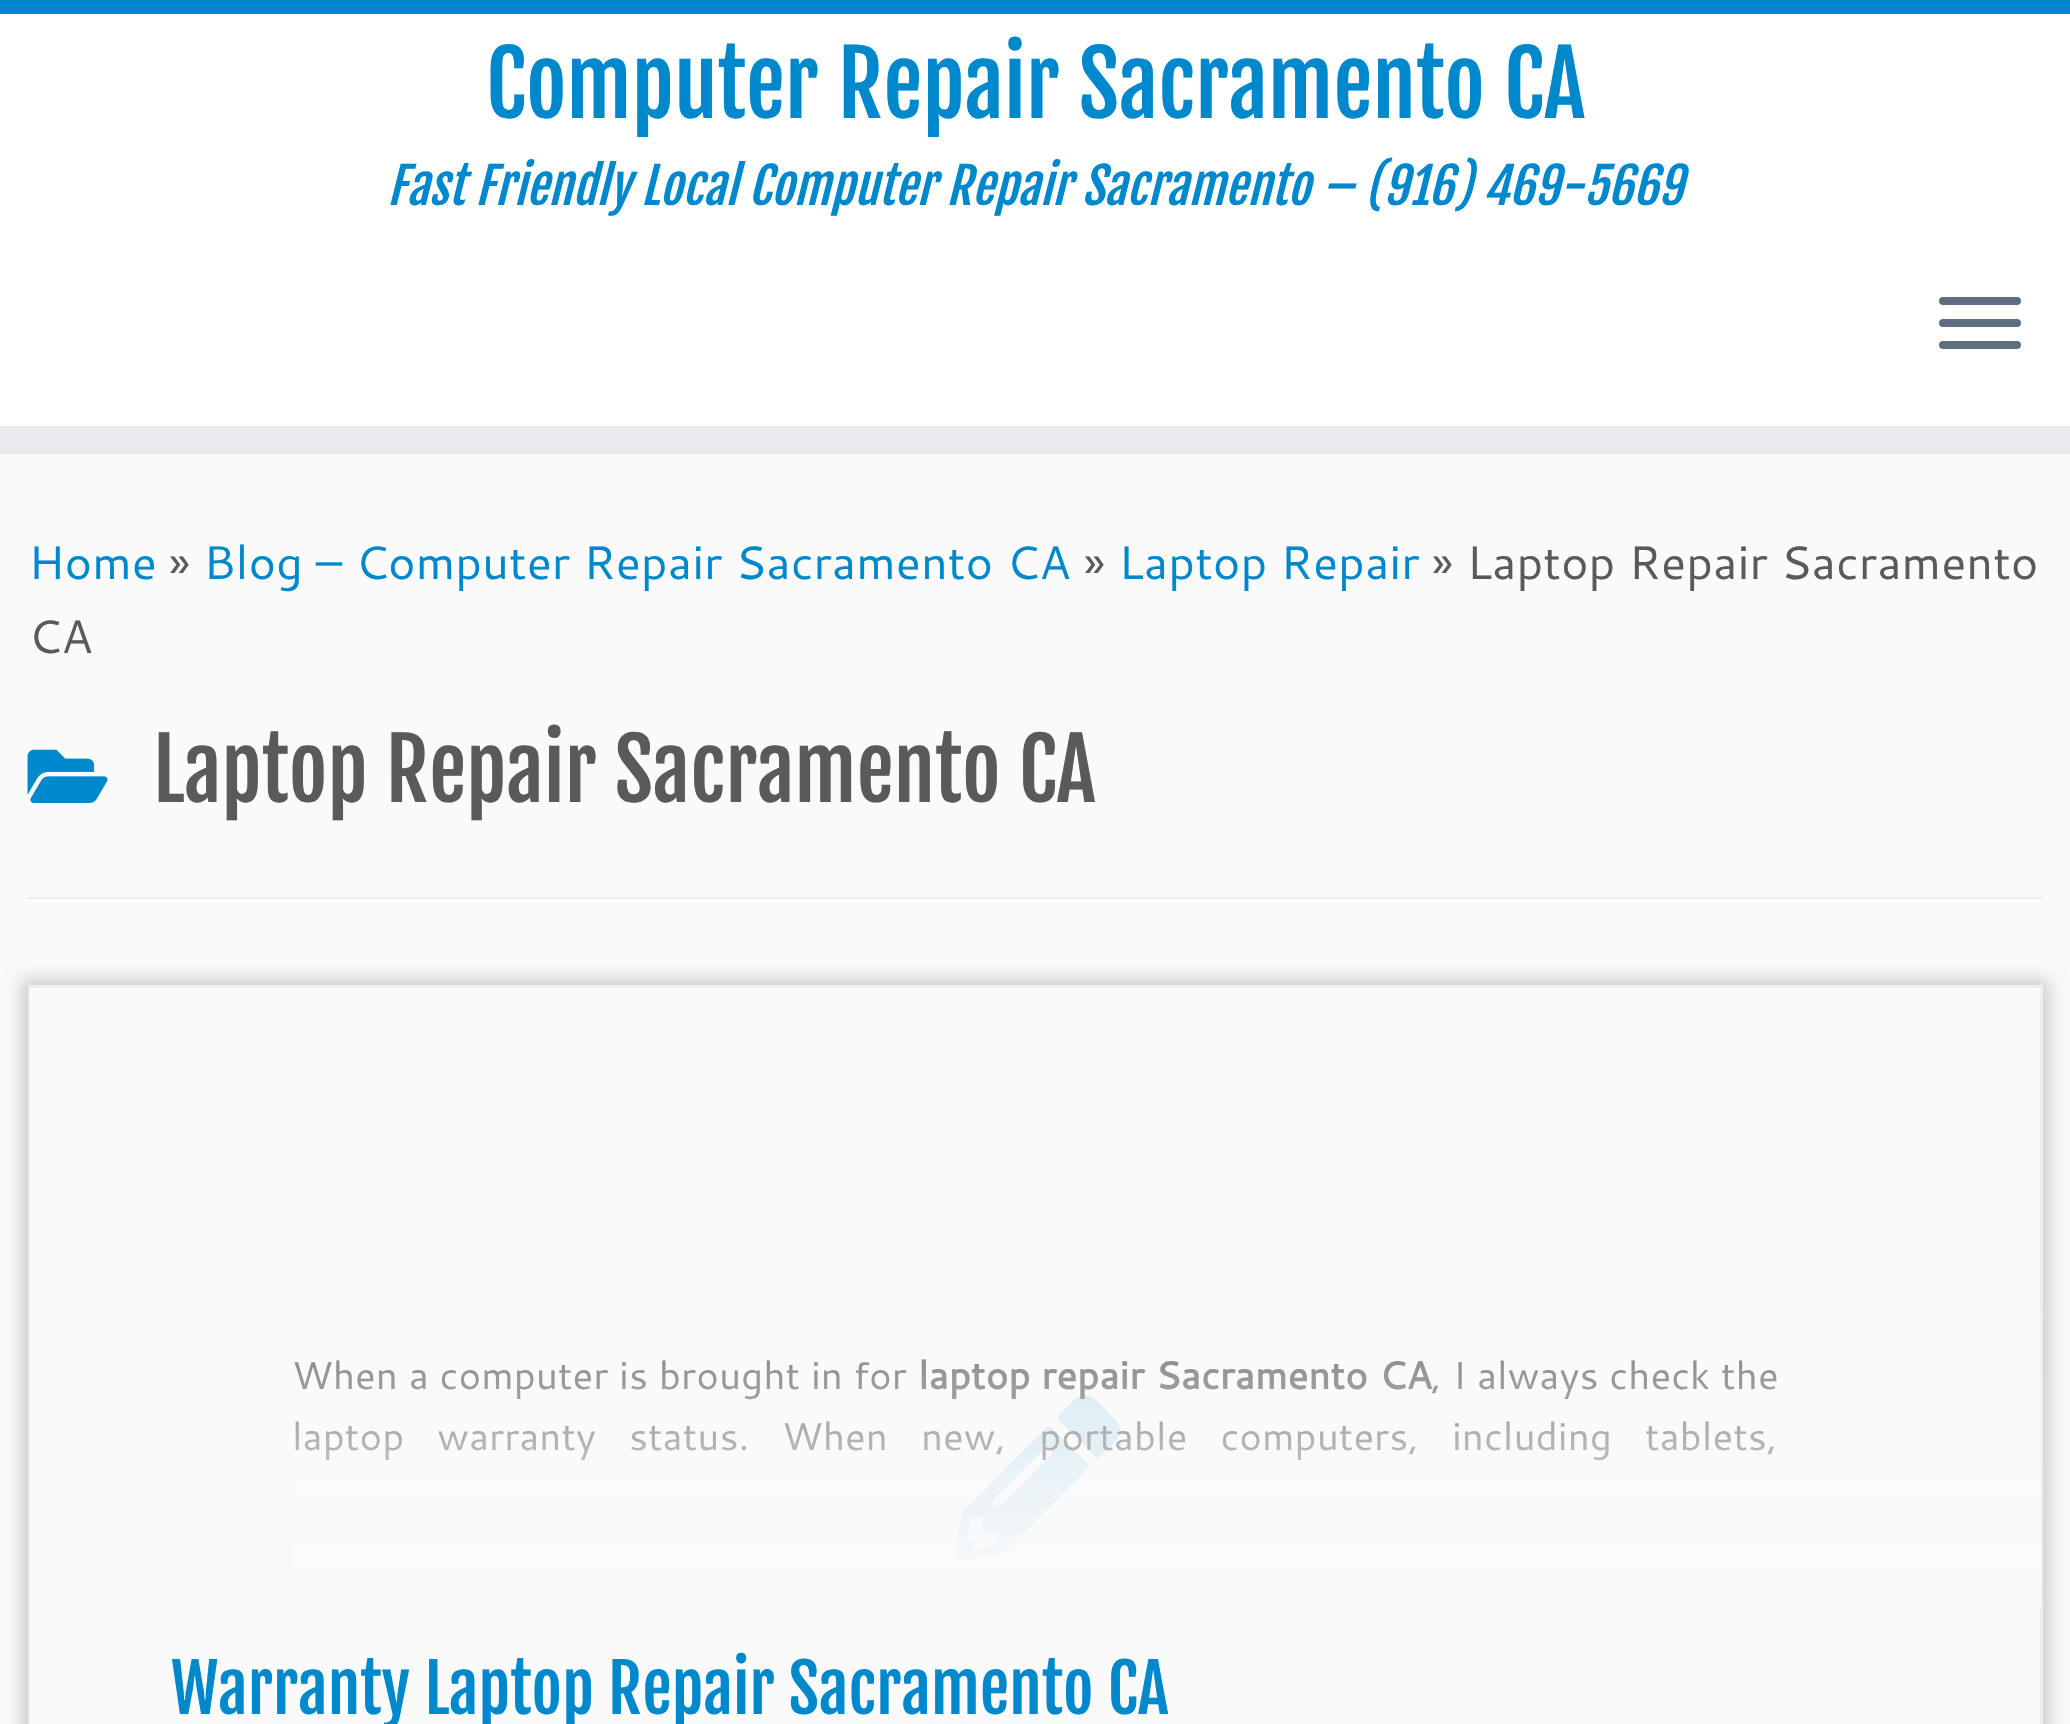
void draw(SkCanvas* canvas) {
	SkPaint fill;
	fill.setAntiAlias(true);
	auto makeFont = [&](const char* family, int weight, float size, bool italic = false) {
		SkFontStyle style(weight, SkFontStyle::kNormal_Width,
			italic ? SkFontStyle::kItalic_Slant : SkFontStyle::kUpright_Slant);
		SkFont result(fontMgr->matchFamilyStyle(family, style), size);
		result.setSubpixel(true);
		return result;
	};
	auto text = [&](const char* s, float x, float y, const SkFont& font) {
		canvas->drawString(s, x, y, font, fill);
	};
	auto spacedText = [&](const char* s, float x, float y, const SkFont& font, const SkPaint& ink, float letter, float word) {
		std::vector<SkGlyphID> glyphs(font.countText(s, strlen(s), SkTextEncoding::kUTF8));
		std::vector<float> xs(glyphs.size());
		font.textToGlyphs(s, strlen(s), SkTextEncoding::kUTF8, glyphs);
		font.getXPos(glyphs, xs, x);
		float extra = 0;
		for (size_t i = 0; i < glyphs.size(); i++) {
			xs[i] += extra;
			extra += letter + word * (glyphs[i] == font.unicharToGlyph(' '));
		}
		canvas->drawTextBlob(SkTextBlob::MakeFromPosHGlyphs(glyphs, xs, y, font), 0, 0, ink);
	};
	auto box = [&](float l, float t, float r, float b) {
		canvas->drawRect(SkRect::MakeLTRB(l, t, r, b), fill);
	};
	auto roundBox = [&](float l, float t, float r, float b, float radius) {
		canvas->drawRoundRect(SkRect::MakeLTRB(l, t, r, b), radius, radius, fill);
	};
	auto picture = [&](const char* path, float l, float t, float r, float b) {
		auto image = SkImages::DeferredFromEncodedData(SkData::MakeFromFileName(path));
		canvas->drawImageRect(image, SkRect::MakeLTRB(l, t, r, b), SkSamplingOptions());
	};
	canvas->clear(0xFFFAFAFA);
	fill.setColor(0xFFFFFFFF);
	box(0, 14, 2070, 426);
	fill.setColor(0xFF0088CC);
	box(0, 0, 2070, 14);
	fill.setColor(0xFFE9EAEE);
	box(0, 426, 2070, 454);
	fill.setColor(0xFF5F6F81);
	roundBox(1939, 297, 2021, 305, 4);
	roundBox(1939, 319, 2021, 327, 4);
	roundBox(1939, 341, 2021, 349, 4);
	picture("image0.png", 27, 749, 108, 803);
	fill.setColor(0xFFEEEEEE);
	box(28, 897, 2043, 899);
	fill.setColor(0xFFFFFFFF);
	box(28, 899, 2043, 902);
	canvas->save();
	canvas->clipPath(SkPathBuilder(SkPathFillType::kEvenOdd).moveTo(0, 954).lineTo(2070, 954).lineTo(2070, 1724).lineTo(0, 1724).close().moveTo(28, 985).lineTo(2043, 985).lineTo(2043, 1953).lineTo(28, 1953).close().detach(), true);
	fill.setColor(0xFFCCCCCC);
	fill.setMaskFilter(SkMaskFilter::MakeBlur(kNormal_SkBlurStyle, 8));
	canvas->drawRect(SkRect::MakeLTRB(22, 979, 2049, 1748), fill);
	fill.setMaskFilter(nullptr);
	canvas->restore();
	fill.setColor(0xFFEEEEEE);
	box(28, 985, 2043, 988);
	canvas->drawPath(SkPathBuilder().moveTo(2043, 984).lineTo(2043, 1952).lineTo(2040, 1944).lineTo(2040, 987).close().detach(), fill);
	canvas->drawPath(SkPathBuilder().moveTo(28, 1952).lineTo(28, 984).lineTo(30, 987).lineTo(30, 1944).close().detach(), fill);
	picture("image1.png", 954, 1395, 1120, 1561);
	auto font1 = makeFont("Fjalla One", 400, 88);
	fill.setColor(0xFF0088CC);
	text("Computer Repair Sacramento CA", 486, 118, font1);
	auto font2 = makeFont("Fjalla One", 400, 49.5f, true);
	text("Fast Friendly Local Computer Repair Sacramento – (916) 469-5669", 387, 205, font2);
	auto font3 = makeFont("Cantarell", 400, 46.75f);
	text("Home", 28, 579, font3);
	fill.setColor(0xFF5A5A5A);
	text("»", 169, 579, font3);
	fill.setColor(0xFF0088CC);
	text("Blog – Computer Repair Sacramento CA", 203, 579, font3);
	fill.setColor(0xFF5A5A5A);
	text("»", 1084, 579, font3);
	fill.setColor(0xFF0088CC);
	text("Laptop Repair", 1118, 579, font3);
	fill.setColor(0xFF5A5A5A);
	text("» Laptop Repair Sacramento", 1432, 579, font3);
	text("CA", 28, 653, font3);
	auto font4 = makeFont("Fjalla One", 400, 83.6f);
	text("Laptop Repair Sacramento CA", 153, 802, font4);
	auto font5 = makeFont("Cantarell", 400, 38.5f);
	spacedText("When a computer is brought in for", 292, 1389, font5, fill, 0, 0.25f);
	auto font6 = makeFont("Cantarell", 700, 38.5f);
	spacedText("laptop repair Sacramento CA", 918, 1389, font6, fill, 0, 0.5f);
	spacedText(", I always check the", 1431, 1389, font5, fill, 0, 0.25f);
	spacedText("laptop warranty status.", 292, 1450, font5, fill, 0, 22.5f);
	spacedText("When new, portable computers, including tablets,", 782, 1450, font5, fill, 0, 22.5f);
	{
		const SkColor colors[] = {0x00FAFAFA, 0xFFFAFAFA};
		const float stops[] = {0, 1};
		const SkPoint ends[] = {{1035, 1235}, {1035, 1606}};
		fill.setShader(SkGradientShader::MakeLinear(ends, colors, stops, 2, SkTileMode::kClamp));
		fill.setAlpha(255);
	}
	box(294, 1305, 2041, 1606);
	auto font7 = makeFont("Fjalla One", 400, 66);
	fill.setShader(nullptr);
	fill.setColor(0xFF0088CC);
	text("Warranty Laptop Repair Sacramento CA", 171, 1714, font7);
}
